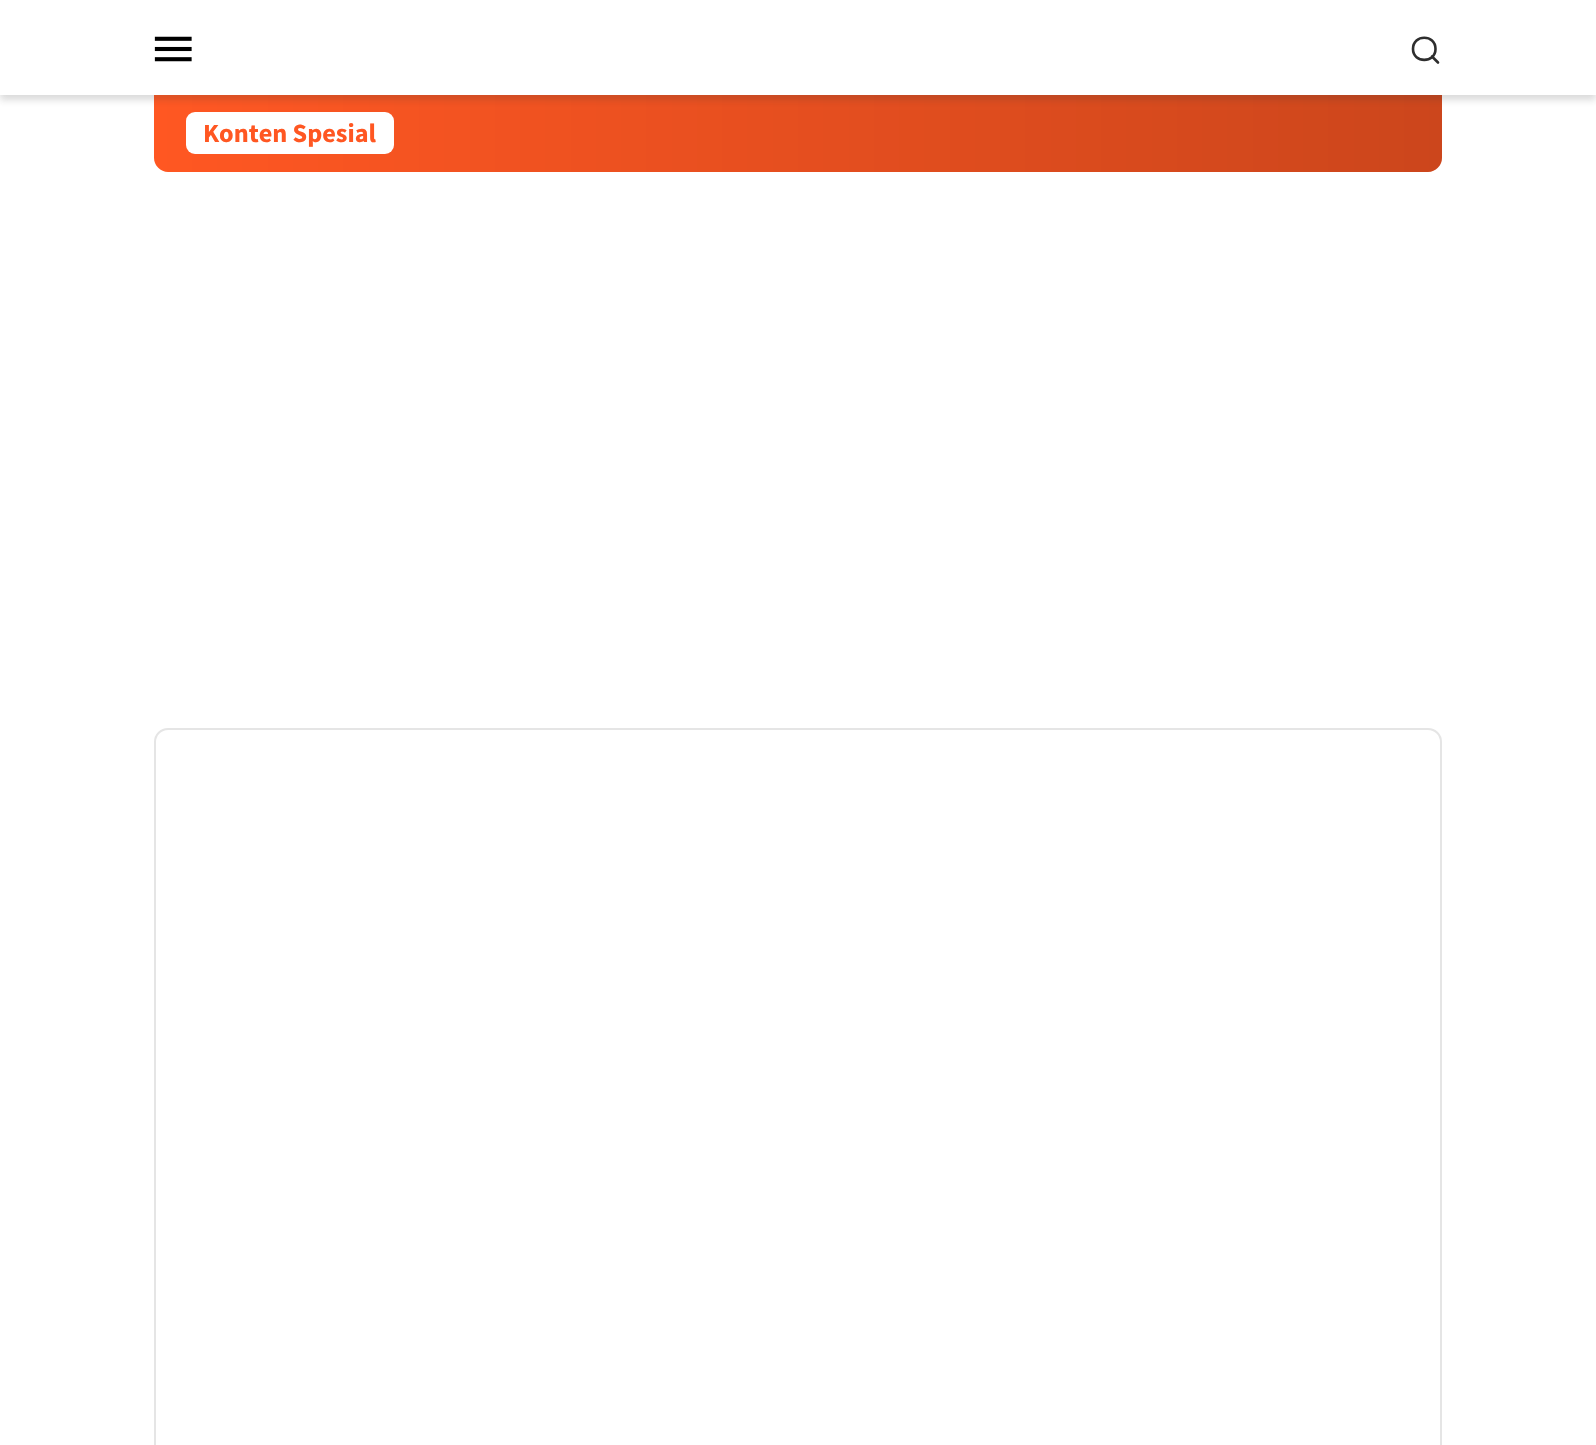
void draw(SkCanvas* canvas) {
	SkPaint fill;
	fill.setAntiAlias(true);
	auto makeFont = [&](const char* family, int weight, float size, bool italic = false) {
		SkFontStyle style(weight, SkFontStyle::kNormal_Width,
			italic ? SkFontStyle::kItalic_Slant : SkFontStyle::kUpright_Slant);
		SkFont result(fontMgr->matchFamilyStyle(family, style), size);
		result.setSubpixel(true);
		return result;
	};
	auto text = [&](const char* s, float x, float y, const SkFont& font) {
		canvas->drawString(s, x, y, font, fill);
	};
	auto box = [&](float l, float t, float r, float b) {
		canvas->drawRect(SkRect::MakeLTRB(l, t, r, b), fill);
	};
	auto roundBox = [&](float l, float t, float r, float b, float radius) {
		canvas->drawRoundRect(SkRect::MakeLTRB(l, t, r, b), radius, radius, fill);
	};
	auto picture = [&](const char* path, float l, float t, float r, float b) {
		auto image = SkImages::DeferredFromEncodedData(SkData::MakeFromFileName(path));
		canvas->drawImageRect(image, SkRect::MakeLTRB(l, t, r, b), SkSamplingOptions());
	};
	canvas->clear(0xFFFFFFFF);
	fill.setColor(0xFFFF5722);
	canvas->drawPath(SkPathBuilder().moveTo(154, 95).lineTo(1442, 95).lineTo(1442, 158).cubicTo(1442, 165.5f, 1435.5f, 172, 1428, 172).lineTo(168, 172).cubicTo(160.5f, 172, 154, 165.5f, 154, 158).close().detach(), fill);
	{
		const SkColor colors[] = {0x00000000, 0x33000000};
		const float stops[] = {0, 1};
		const SkPoint ends[] = {{154, 133}, {1442, 133}};
		fill.setShader(SkGradientShader::MakeLinear(ends, colors, stops, 2, SkTileMode::kClamp));
		fill.setAlpha(255);
	}
	canvas->drawPath(SkPathBuilder().moveTo(154, 95).lineTo(1442, 95).lineTo(1442, 158).cubicTo(1442, 165.5f, 1435.5f, 172, 1428, 172).lineTo(168, 172).cubicTo(160.5f, 172, 154, 165.5f, 154, 158).close().detach(), fill);
	fill.setShader(nullptr);
	fill.setColor(0x2E343434);
	fill.setMaskFilter(SkMaskFilter::MakeBlur(kNormal_SkBlurStyle, 3.5f));
	canvas->drawRect(SkRect::MakeLTRB(0, 5, 1596, 100), fill);
	fill.setMaskFilter(nullptr);
	fill.setColor(0xFFFFFFFF);
	box(0, 0, 1596, 95);
	picture("image0.png", 154, 36, 192, 62);
	fill.setStyle(SkPaint::kStroke_Style);
	fill.setStrokeWidth(2.6f);
	fill.setStrokeCap(SkPaint::kRound_Cap);
	fill.setColor(0xFF2E2E2E);
	canvas->drawPath(SkPathBuilder().moveTo(1438, 62.5f).lineTo(1432, 56.5f).moveTo(1435.5f, 49).cubicTo(1435.5f, 63.5f, 1413, 63.5f, 1413, 49).cubicTo(1413, 34, 1435.5f, 34, 1435.5f, 49).close().detach(), fill);
	fill.setStyle(SkPaint::kFill_Style);
	fill.setColor(0xFFFFFFFF);
	roundBox(186, 112, 394, 154, 9);
	fill.setStyle(SkPaint::kStroke_Style);
	fill.setStrokeWidth(2);
	fill.setStrokeCap(SkPaint::kButt_Cap);
	fill.setColor(0xFFE5E5E5);
	canvas->drawRoundRect(SkRect::MakeLTRB(155, 729, 1441, 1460), 13, 13, fill);
	auto font1 = makeFont("Source Sans Pro", 700, 26.25f);
	fill.setStyle(SkPaint::kFill_Style);
	fill.setColor(0xFFFF5722);
	text("Konten Spesial", 203, 142, font1);
}
